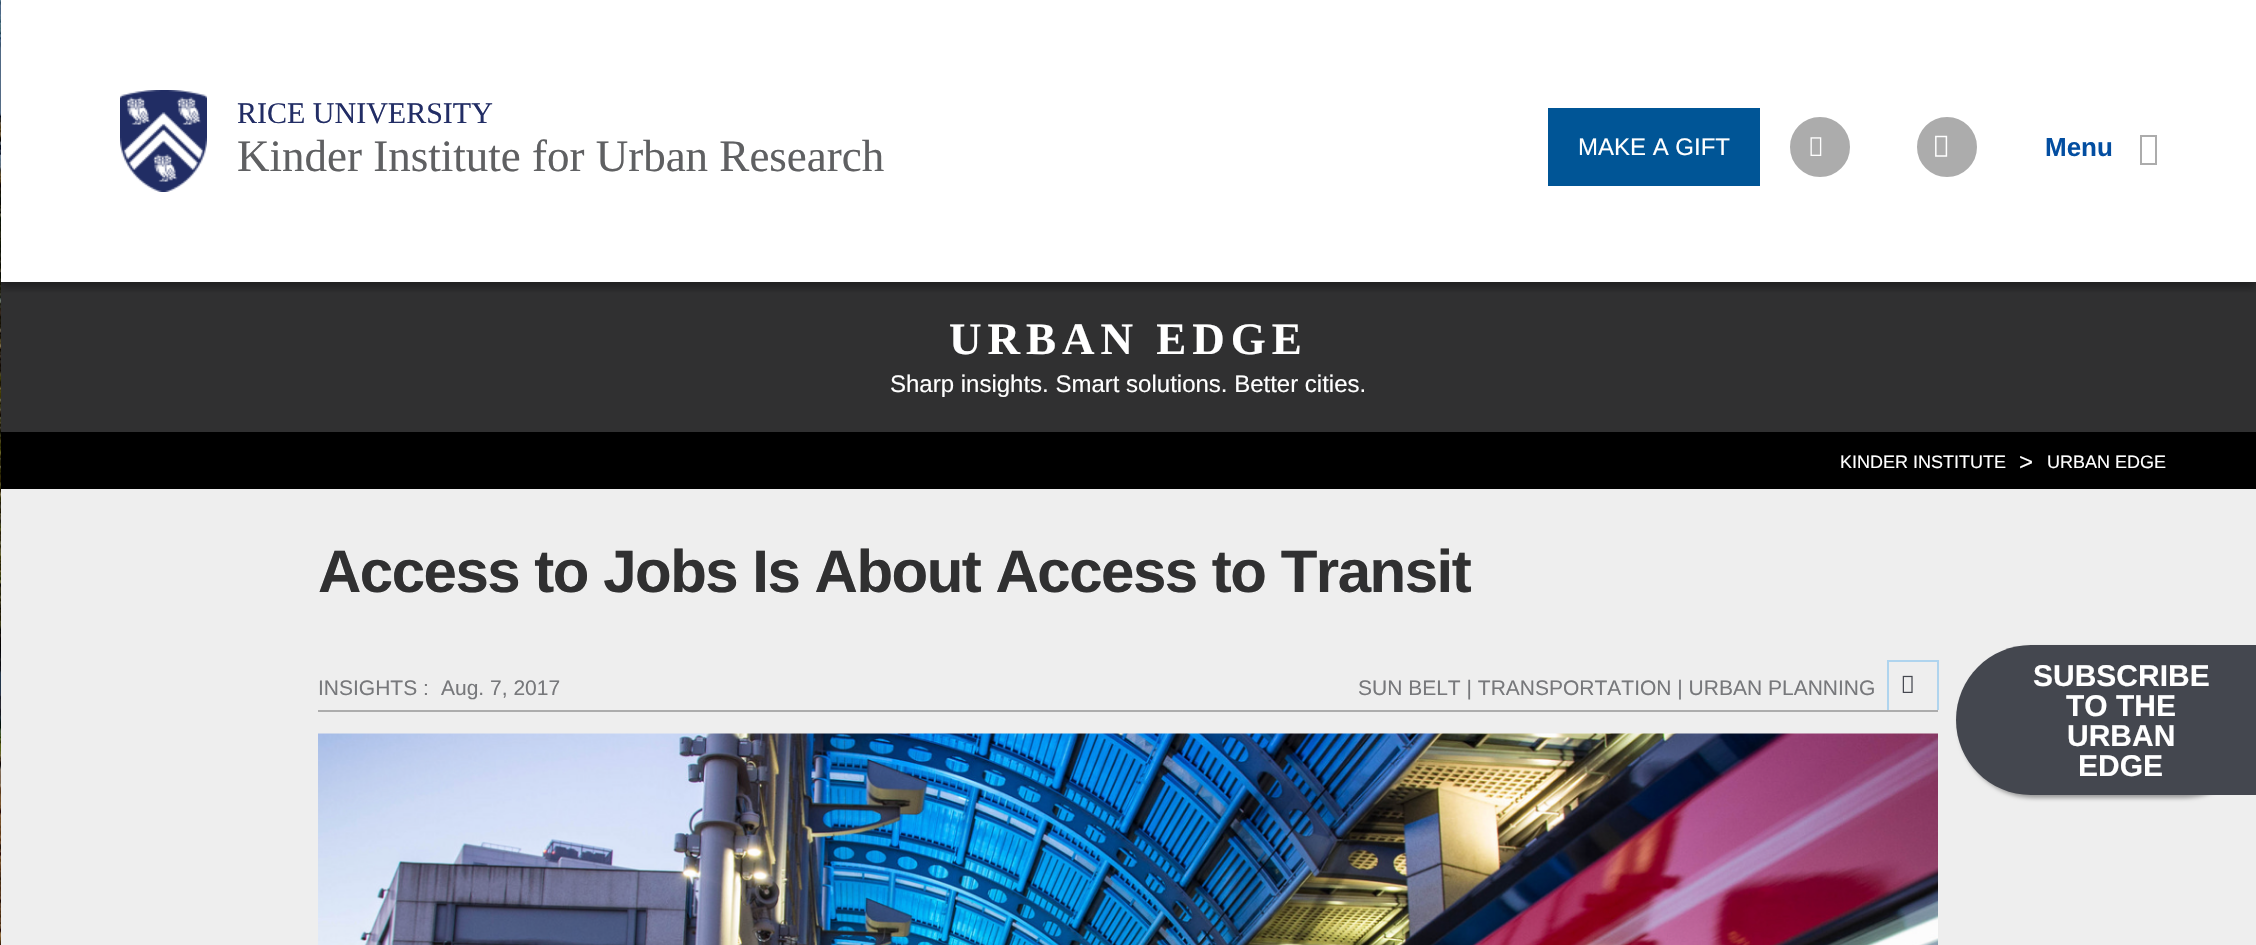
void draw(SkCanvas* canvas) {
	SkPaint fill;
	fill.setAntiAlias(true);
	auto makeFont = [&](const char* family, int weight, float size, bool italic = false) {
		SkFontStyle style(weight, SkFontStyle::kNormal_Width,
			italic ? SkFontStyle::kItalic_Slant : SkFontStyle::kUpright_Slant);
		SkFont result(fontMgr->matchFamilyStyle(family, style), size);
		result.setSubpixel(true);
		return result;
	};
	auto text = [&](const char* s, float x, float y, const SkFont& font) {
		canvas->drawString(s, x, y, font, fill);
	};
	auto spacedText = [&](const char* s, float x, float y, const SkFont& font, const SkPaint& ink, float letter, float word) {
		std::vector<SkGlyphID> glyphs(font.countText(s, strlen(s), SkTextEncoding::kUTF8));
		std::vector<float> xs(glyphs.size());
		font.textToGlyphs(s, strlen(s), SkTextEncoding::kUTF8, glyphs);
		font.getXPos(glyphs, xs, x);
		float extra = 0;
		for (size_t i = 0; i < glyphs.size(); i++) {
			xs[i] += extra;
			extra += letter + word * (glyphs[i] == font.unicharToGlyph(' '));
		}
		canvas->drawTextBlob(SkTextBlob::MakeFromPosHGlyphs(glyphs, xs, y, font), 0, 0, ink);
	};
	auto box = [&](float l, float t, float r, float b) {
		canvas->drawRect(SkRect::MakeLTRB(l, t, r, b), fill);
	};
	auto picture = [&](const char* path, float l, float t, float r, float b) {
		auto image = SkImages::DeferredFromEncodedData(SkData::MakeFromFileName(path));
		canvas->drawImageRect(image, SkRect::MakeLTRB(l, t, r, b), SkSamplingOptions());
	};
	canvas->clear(0xFFFFFFFF);
	fill.setColor(0xFF303031);
	box(1, 282, 2256, 432);
	canvas->save();
	canvas->clipRect(SkRect::MakeLTRB(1, 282, 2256, 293));
	fill.setColor(0x3B000000);
	fill.setMaskFilter(SkMaskFilter::MakeBlur(kNormal_SkBlurStyle, 4.5f));
	canvas->drawRect(SkRect::MakeLTRB(0, 5, 2256, 287), fill);
	fill.setMaskFilter(nullptr);
	canvas->restore();
	canvas->save();
	canvas->clipRect(SkRect::MakeLTRB(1, 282, 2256, 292));
	fill.setColor(0x29000000);
	fill.setMaskFilter(SkMaskFilter::MakeBlur(kNormal_SkBlurStyle, 4.5f));
	canvas->drawRect(SkRect::MakeLTRB(0, 5, 2256, 287), fill);
	fill.setMaskFilter(nullptr);
	canvas->restore();
	picture("image0.png", 0, 0, 1, 945);
	picture("image1.png", 120, 90, 207, 192);
	fill.setColor(0xFF005596);
	box(1548, 108, 1760, 186);
	fill.setColor(0xFFACACAC);
	canvas->drawCircle(1820, 147, 28.5f, fill);
	fill.setStyle(SkPaint::kStroke_Style);
	fill.setStrokeWidth(3);
	canvas->drawCircle(1820, 147, 28.5f, fill);
	picture("image2.png", 1810, 137, 1822, 156);
	fill.setStyle(SkPaint::kFill_Style);
	canvas->drawCircle(1947, 147, 28.5f, fill);
	fill.setStyle(SkPaint::kStroke_Style);
	canvas->drawCircle(1947, 147, 28.5f, fill);
	picture("image3.png", 1935, 135, 1948, 157);
	fill.setStyle(SkPaint::kFill_Style);
	canvas->drawPath(SkPathBuilder().moveTo(2140, 165).lineTo(2140, 135).lineTo(2157, 135).lineTo(2157, 165).close().moveTo(2142, 163).lineTo(2155, 163).lineTo(2155, 137).lineTo(2142, 137).close().detach(), fill);
	fill.setColor(0xFFEEEEEE);
	box(1, 489, 2256, 945);
	fill.setColor(0xFF999999);
	fill.setMaskFilter(SkMaskFilter::MakeBlur(kNormal_SkBlurStyle, 2));
	canvas->drawRoundRect(SkRect::MakeLTRB(1959, 648, 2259, 798), 75, 75, fill);
	fill.setMaskFilter(nullptr);
	fill.setColor(0xFF44474F);
	canvas->drawPath(SkPathBuilder().moveTo(2031, 645).lineTo(2256, 645).lineTo(2256, 795).lineTo(2031, 795).cubicTo(1989.5f, 795, 1956, 761.5f, 1956, 720).cubicTo(1956, 678.5f, 1989.5f, 645, 2031, 645).close().detach(), fill);
	fill.setColor(0xFF000000);
	box(1, 432, 2256, 489);
	fill.setColor(0xFFACACAC);
	box(318, 710, 1938, 712);
	fill.setColor(0xFFAFD4EE);
	box(1887, 660, 1938, 662);
	box(1937, 660, 1939, 710);
	box(1887, 660, 1889, 710);
	picture("image4.png", 1902, 675, 1913, 693);
	picture("image5.png", 318, 733, 1938, 945);
	auto font1 = makeFont("Liberation Serif", 400, 30);
	fill.setColor(0xFF222D65);
	text("RICE UNIVERSITY", 237, 123, font1);
	auto font2 = makeFont("Liberation Serif", 400, 45);
	fill.setColor(0xFF5F6062);
	text("Kinder Institute for Urban Research", 237, 171, font2);
	auto font3 = makeFont("Liberation Sans", 400, 24);
	fill.setColor(0xFFFFFFFF);
	text("MAKE A GIFT", 1578, 155, font3);
	auto font4 = makeFont("Liberation Sans", 700, 26);
	fill.setColor(0xFF034EA1);
	text("Menu", 2045, 156, font4);
	auto font5 = makeFont("Liberation Sans", 700, 30);
	fill.setColor(0xFFFFFFFF);
	text("SUBSCRIBE", 2033, 686, font5);
	text("TO THE", 2066, 716, font5);
	text("URBAN", 2067, 746, font5);
	text("EDGE", 2078, 776, font5);
	auto font6 = makeFont("Liberation Serif", 700, 45);
	spacedText("URBAN EDGE", 949, 354, font6, fill, 6, 0);
	text("Sharp insights. Smart solutions. Better cities.", 890, 392, font3);
	auto font7 = makeFont("Liberation Sans", 400, 18);
	text("KINDER INSTITUTE", 1840, 468, font7);
	text(">", 2019, 470, font3);
	text("URBAN EDGE", 2047, 468, font7);
	auto font8 = makeFont("Liberation Sans", 700, 60);
	fill.setColor(0xFF303031);
	spacedText("Access to Jobs Is About Access to Transit", 318, 592, font8, fill, -1.5f, 0);
	auto font9 = makeFont("Liberation Sans", 400, 21);
	fill.setColor(0xFF77787B);
	text("INSIGHTS :", 318, 695, font9);
	text("Aug. 7, 2017", 441, 695, font9);
	text("SUN BELT | TRANSPORTATION | URBAN PLANNING", 1358, 695, font9);
}
